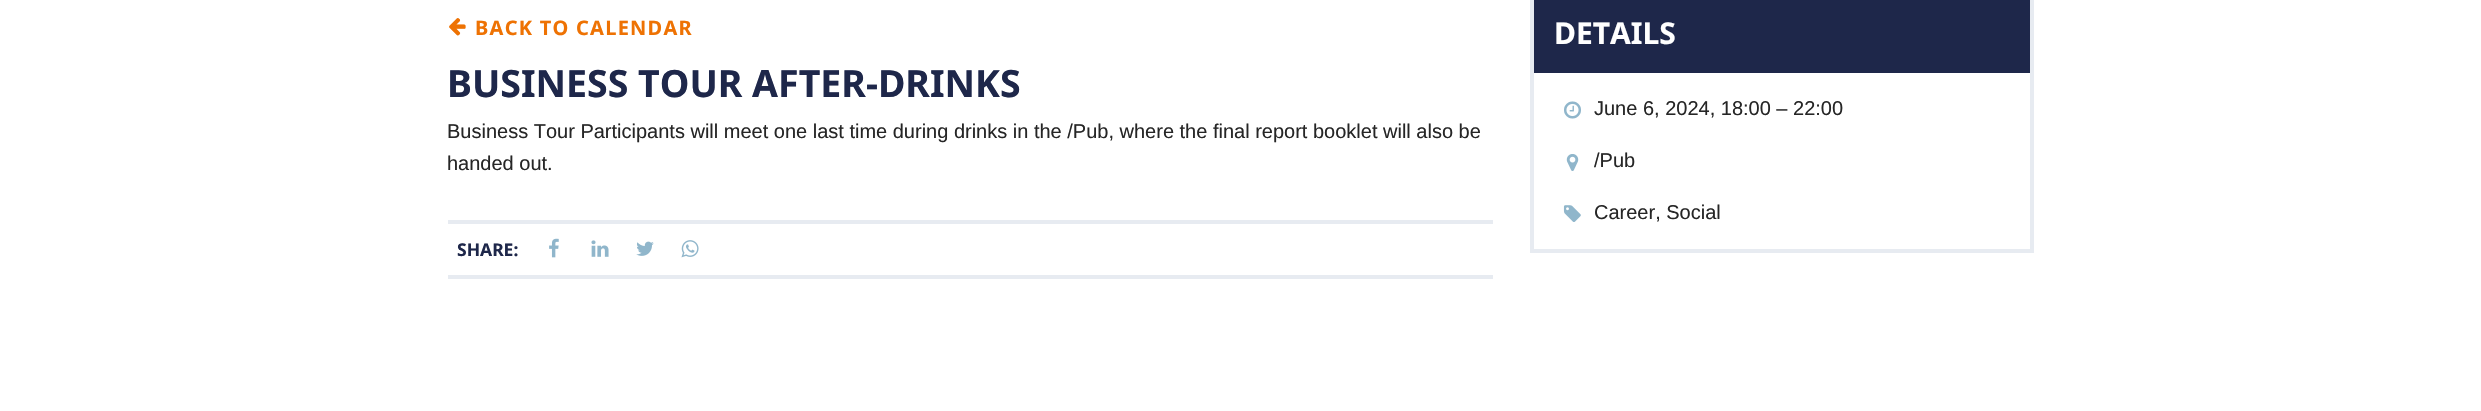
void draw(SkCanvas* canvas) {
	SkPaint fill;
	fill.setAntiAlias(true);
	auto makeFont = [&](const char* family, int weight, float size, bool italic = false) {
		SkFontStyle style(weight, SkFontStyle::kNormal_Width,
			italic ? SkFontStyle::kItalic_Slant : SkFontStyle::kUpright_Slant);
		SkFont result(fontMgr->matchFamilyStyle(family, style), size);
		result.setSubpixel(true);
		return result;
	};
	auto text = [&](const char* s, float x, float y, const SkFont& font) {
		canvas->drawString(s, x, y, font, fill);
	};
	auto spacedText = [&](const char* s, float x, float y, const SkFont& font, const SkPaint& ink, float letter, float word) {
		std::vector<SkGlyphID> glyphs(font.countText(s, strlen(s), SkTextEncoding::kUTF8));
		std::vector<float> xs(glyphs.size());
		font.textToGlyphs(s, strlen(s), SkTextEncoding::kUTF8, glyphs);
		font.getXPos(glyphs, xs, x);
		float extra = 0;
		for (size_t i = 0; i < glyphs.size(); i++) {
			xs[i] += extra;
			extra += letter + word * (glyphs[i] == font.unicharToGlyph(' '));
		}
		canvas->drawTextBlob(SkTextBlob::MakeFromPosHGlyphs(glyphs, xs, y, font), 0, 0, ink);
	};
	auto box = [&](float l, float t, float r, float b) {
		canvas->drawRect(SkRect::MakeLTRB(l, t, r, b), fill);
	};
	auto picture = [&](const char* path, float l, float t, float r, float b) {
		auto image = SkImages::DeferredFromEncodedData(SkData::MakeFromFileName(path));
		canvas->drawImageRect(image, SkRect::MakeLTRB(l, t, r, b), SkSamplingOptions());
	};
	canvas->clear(0xFFFFFFFF);
	fill.setColor(0xFFE7EBF1);
	box(448, 220, 1493, 224);
	box(448, 275, 1493, 279);
	picture("image0.png", 549, 238, 559, 258);
	picture("image1.png", 591, 240, 609, 257);
	picture("image2.png", 636, 241, 654, 256);
	picture("image3.png", 681, 240, 699, 258);
	fill.setStyle(SkPaint::kStroke_Style);
	fill.setStrokeWidth(4);
	canvas->drawRect(SkRect::MakeLTRB(1532, -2, 2032, 251), fill);
	fill.setStyle(SkPaint::kFill_Style);
	fill.setColor(0xFF1E274A);
	box(1534, 0, 2030, 73);
	picture("image4.png", 1564, 101, 1581, 119);
	picture("image5.png", 1566, 154, 1579, 171);
	picture("image6.png", 1563, 205, 1581, 222);
	auto font1 = makeFont("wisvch", 400, 20);
	fill.setColor(0xFFEE7203);
	spacedText("1", 447, 36, font1, fill, 1.25f, 0);
	auto font2 = makeFont("Noto Sans", 700, 20);
	spacedText("BACK TO CALENDAR", 475, 35, font2, fill, 1.25f, 0);
	auto font3 = makeFont("Noto Sans", 700, 37.5f);
	fill.setColor(0xFF1E274A);
	text("BUSINESS TOUR AFTER-DRINKS", 447, 97, font3);
	auto font4 = makeFont("Liberation Sans", 400, 20);
	fill.setColor(0xFF262626);
	text("Business Tour Participants will meet one last time during drinks in the /Pub, where the final report booklet will also be", 447, 138, font4);
	text("handed out.", 447, 170, font4);
	auto font5 = makeFont("Noto Sans", 700, 17.5f);
	fill.setColor(0xFF1E274A);
	text("SHARE:", 457, 256, font5);
	auto font6 = makeFont("Noto Sans", 700, 30);
	fill.setColor(0xFFFFFFFF);
	text("DETAILS", 1554, 44, font6);
	fill.setColor(0xFF262626);
	text("June 6, 2024, 18:00 – 22:00", 1594, 115, font4);
	text("/Pub", 1594, 167, font4);
	text("Career, Social", 1594, 219, font4);
}
